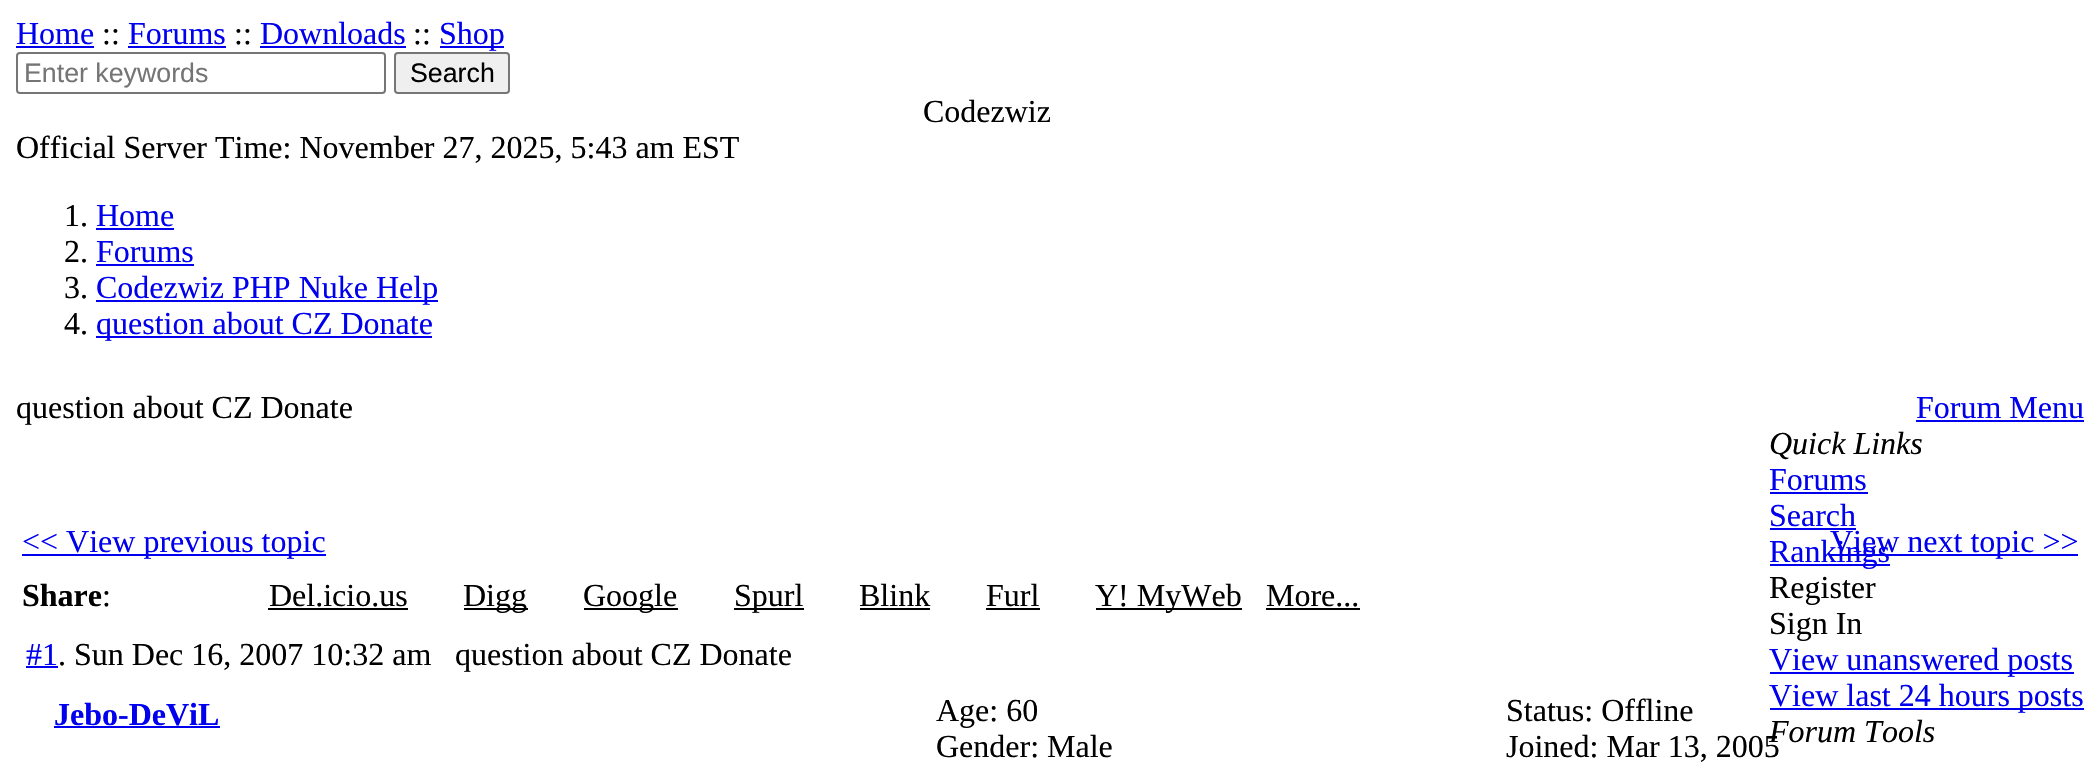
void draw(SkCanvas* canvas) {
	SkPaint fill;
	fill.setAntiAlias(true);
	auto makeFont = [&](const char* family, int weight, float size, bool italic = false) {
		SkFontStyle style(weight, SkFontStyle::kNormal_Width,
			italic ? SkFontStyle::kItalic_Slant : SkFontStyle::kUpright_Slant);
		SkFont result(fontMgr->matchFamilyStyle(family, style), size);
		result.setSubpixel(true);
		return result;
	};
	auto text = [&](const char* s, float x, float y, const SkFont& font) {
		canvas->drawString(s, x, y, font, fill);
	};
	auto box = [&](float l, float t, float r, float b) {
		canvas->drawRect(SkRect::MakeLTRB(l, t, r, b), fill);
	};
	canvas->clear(0xFFFFFFFF);
	fill.setColor(0xFF0000EE);
	box(16, 46, 94, 48);
	box(128, 46, 226, 48);
	box(260, 46, 406, 48);
	box(440, 46, 504, 48);
	fill.setStyle(SkPaint::kStroke_Style);
	fill.setStrokeWidth(2);
	fill.setColor(0xFF767676);
	canvas->drawRoundRect(SkRect::MakeLTRB(17, 53, 385, 93), 3, 3, fill);
	fill.setStyle(SkPaint::kFill_Style);
	fill.setColor(0xFFEFEFEF);
	canvas->drawRoundRect(SkRect::MakeLTRB(395, 53, 509, 93), 3, 3, fill);
	fill.setStyle(SkPaint::kStroke_Style);
	fill.setColor(0xFF767676);
	canvas->drawRoundRect(SkRect::MakeLTRB(395, 53, 509, 93), 3, 3, fill);
	fill.setStyle(SkPaint::kFill_Style);
	fill.setColor(0xFF0000EE);
	box(96, 228, 174, 230);
	box(96, 264, 194, 266);
	box(96, 300, 438, 302);
	box(96, 336, 432, 338);
	box(1916, 420, 2084, 422);
	box(1770, 492, 1868, 494);
	box(1770, 528, 1856, 530);
	box(1770, 564, 1890, 566);
	box(1770, 672, 2074, 674);
	box(1770, 708, 2084, 710);
	box(22, 554, 326, 556);
	box(1830, 554, 2078, 556);
	fill.setColor(0xFF000000);
	box(268, 608, 408, 610);
	box(464, 608, 528, 610);
	box(584, 608, 678, 610);
	box(734, 608, 804, 610);
	box(860, 608, 930, 610);
	box(986, 608, 1040, 610);
	box(1096, 608, 1242, 610);
	box(1266, 608, 1360, 610);
	fill.setColor(0xFF0000EE);
	box(26, 666, 58, 668);
	box(54, 726, 220, 728);
	auto font1 = makeFont("Liberation Serif", 400, 32);
	text("Home", 16, 44, font1);
	fill.setColor(0xFF000000);
	text("::", 102, 44, font1);
	fill.setColor(0xFF0000EE);
	text("Forums", 128, 44, font1);
	fill.setColor(0xFF000000);
	text("::", 234, 44, font1);
	fill.setColor(0xFF0000EE);
	text("Downloads", 260, 44, font1);
	fill.setColor(0xFF000000);
	text("::", 413, 44, font1);
	fill.setColor(0xFF0000EE);
	text("Shop", 439, 44, font1);
	auto font2 = makeFont("Liberation Sans", 400, 26.75f);
	fill.setColor(0xFF757575);
	text("Enter keywords", 24, 82, font2);
	fill.setColor(0xFF000000);
	text("Search", 410, 82, font2);
	text("Codezwiz", 923, 122, font1);
	text("Official Server Time: November 27, 2025, 5:43 am EST", 16, 158, font1);
	text("1.", 64, 226, font1);
	fill.setColor(0xFF0000EE);
	text("Home", 96, 226, font1);
	fill.setColor(0xFF000000);
	text("2.", 64, 262, font1);
	fill.setColor(0xFF0000EE);
	text("Forums", 96, 262, font1);
	fill.setColor(0xFF000000);
	text("3.", 64, 298, font1);
	fill.setColor(0xFF0000EE);
	text("Codezwiz PHP Nuke Help", 96, 298, font1);
	fill.setColor(0xFF000000);
	text("4.", 64, 334, font1);
	fill.setColor(0xFF0000EE);
	text("question about CZ Donate", 96, 334, font1);
	fill.setColor(0xFF000000);
	text("question about CZ Donate", 16, 418, font1);
	fill.setColor(0xFF0000EE);
	text("Forum Menu", 1916, 418, font1);
	auto font3 = makeFont("Liberation Serif", 400, 32, true);
	fill.setColor(0xFF000000);
	text("Quick Links", 1769, 454, font3);
	fill.setColor(0xFF0000EE);
	text("Forums", 1769, 490, font1);
	text("Search", 1769, 526, font1);
	fill.setColor(0xFF000000);
	text("Register", 1769, 598, font1);
	text("Sign In", 1769, 634, font1);
	fill.setColor(0xFF0000EE);
	text("View unanswered posts", 1769, 670, font1);
	text("View last 24 hours posts", 1769, 706, font1);
	fill.setColor(0xFF000000);
	text("Forum Tools", 1769, 742, font3);
	fill.setColor(0xFF0000EE);
	text("<< View previous topic", 22, 552, font1);
	text("View next topic >>", 1830, 552, font1);
	text("Rankings", 1769, 562, font1);
	auto font4 = makeFont("Liberation Serif", 700, 32);
	fill.setColor(0xFF000000);
	text("Share", 22, 606, font4);
	text(":", 102, 606, font1);
	text("Del.icio.us", 269, 606, font1);
	text("Digg", 463, 606, font1);
	text("Google", 583, 606, font1);
	text("Spurl", 734, 606, font1);
	text("Blink", 859, 606, font1);
	text("Furl", 986, 606, font1);
	text("Y! MyWeb", 1095, 606, font1);
	text("More...", 1266, 606, font1);
	fill.setColor(0xFF0000EE);
	text("#1", 26, 665, font1);
	fill.setColor(0xFF000000);
	text(". Sun Dec 16, 2007 10:32 am", 58, 665, font1);
	text("question about CZ Donate", 455, 665, font1);
	fill.setColor(0xFF0000EE);
	text("Jebo-DeViL", 54, 725, font4);
	fill.setColor(0xFF000000);
	text("Age: 60", 936, 721, font1);
	text("Gender: Male", 936, 757, font1);
	text("Status: Offline", 1506, 721, font1);
	text("Joined: Mar 13, 2005", 1506, 757, font1);
}
